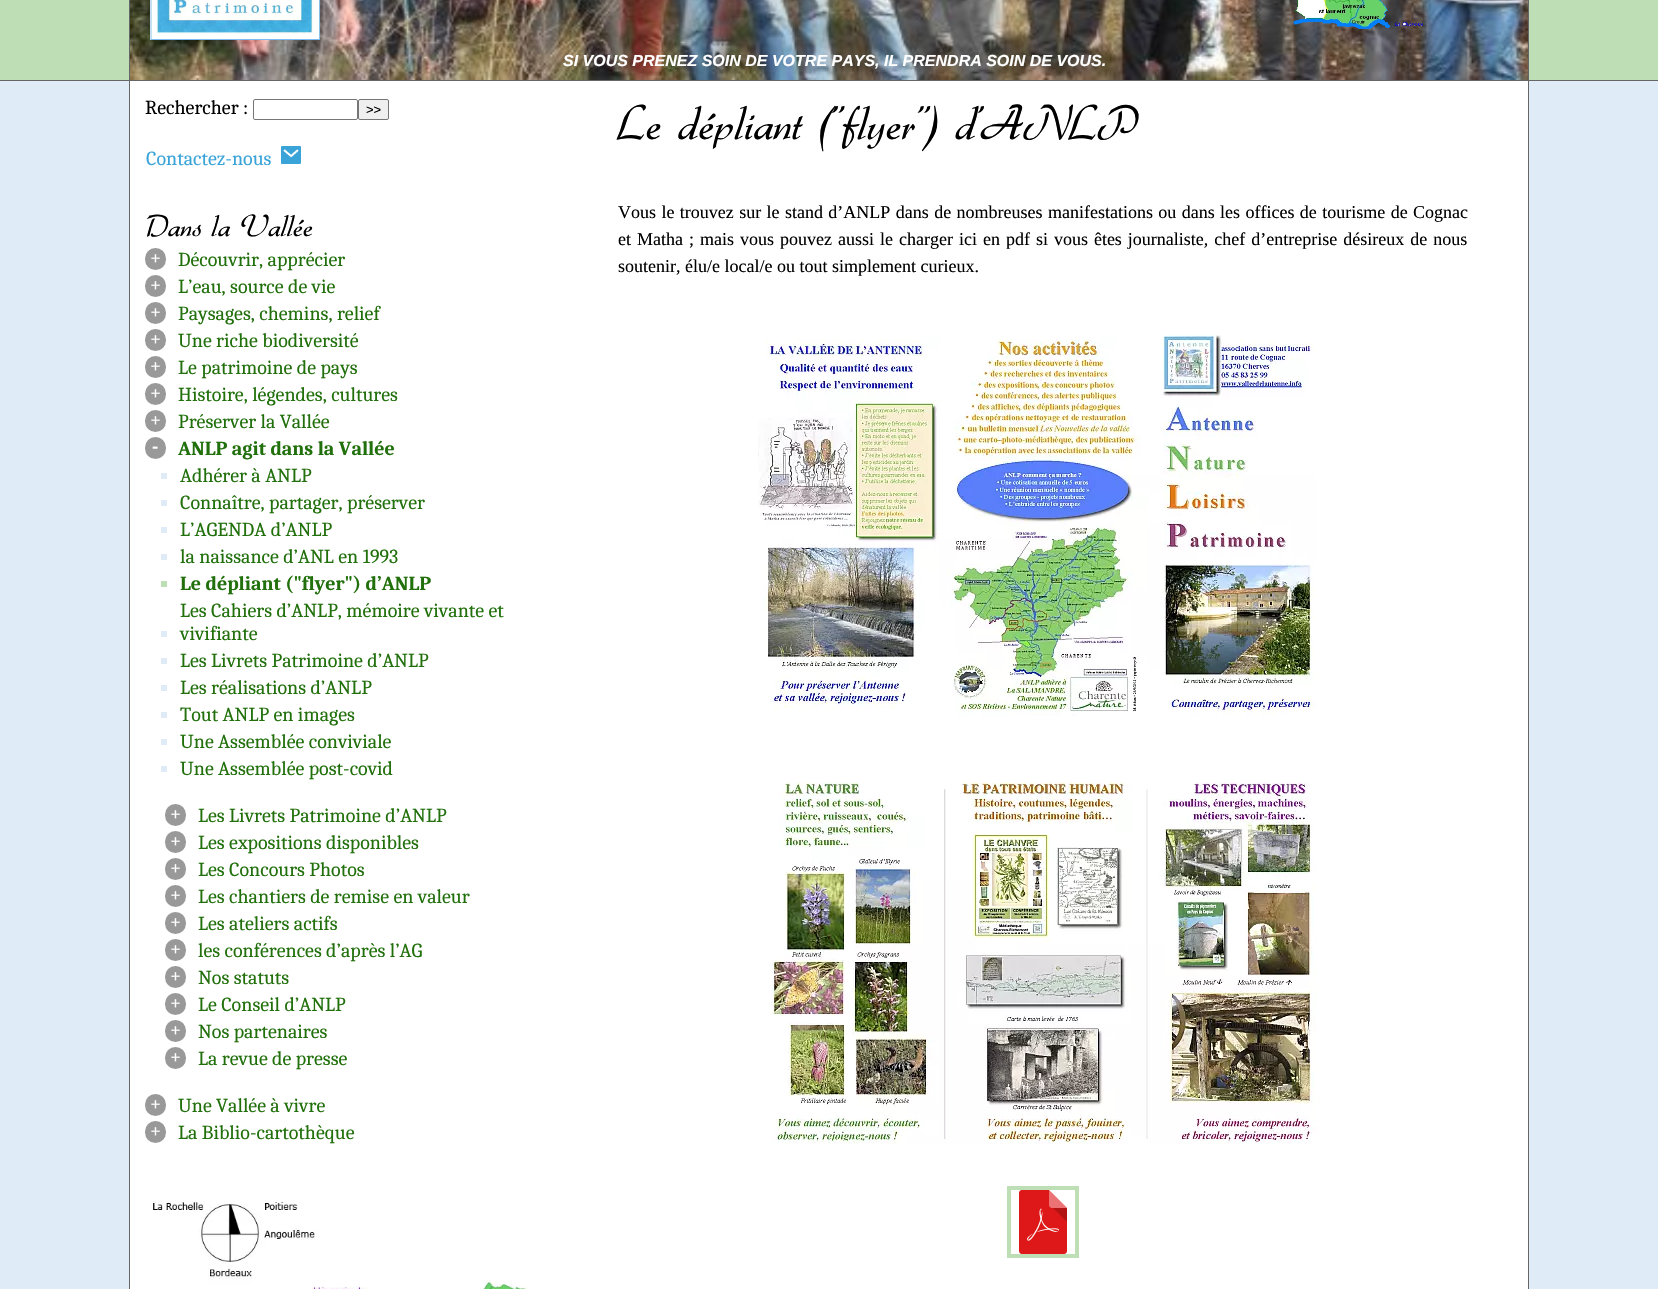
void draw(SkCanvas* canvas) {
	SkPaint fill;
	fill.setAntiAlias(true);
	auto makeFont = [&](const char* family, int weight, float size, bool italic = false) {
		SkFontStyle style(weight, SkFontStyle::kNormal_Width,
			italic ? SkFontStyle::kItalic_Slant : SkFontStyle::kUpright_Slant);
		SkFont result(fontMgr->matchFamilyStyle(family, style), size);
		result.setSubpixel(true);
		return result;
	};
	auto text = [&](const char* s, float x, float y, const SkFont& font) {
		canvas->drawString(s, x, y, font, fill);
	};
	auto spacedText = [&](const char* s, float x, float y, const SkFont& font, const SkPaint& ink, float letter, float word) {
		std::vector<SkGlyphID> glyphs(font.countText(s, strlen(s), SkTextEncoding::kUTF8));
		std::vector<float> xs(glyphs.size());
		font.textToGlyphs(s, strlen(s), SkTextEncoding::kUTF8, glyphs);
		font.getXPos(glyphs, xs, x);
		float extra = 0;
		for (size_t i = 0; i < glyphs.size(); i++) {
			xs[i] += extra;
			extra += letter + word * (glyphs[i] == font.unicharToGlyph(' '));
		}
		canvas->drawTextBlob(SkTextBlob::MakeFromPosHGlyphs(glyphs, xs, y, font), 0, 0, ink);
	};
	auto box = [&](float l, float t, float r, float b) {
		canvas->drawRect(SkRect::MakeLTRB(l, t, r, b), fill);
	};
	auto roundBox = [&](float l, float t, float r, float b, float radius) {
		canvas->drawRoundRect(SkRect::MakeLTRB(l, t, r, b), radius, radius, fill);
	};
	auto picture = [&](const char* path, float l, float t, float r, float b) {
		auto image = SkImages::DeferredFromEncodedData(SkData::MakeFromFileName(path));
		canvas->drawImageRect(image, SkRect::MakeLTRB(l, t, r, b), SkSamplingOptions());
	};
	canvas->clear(0xFFBEDFB6);
	picture("image0.png", 130, 0, 1528, 80);
	fill.setColor(0xFF666666);
	box(1528, 0, 1529, 80);
	box(129, 0, 130, 80);
	picture("image1.png", 150, 0, 320, 40);
	picture("image2.png", 1293, 0, 1423, 29);
	fill.setColor(0xFFE0EBF8);
	box(0, 81, 1658, 1289);
	fill.setColor(0xFF666666);
	box(0, 80, 1658, 81);
	fill.setColor(0xFFFFFFFF);
	box(130, 81, 1528, 1289);
	fill.setColor(0xFF666666);
	box(1528, 81, 1529, 1289);
	box(129, 81, 130, 1289);
	fill.setStyle(SkPaint::kStroke_Style);
	fill.setStrokeWidth(1);
	fill.setColor(0xFF767676);
	canvas->drawRoundRect(SkRect::MakeLTRB(253.5f, 99.5f, 357.5f, 119.5f), 1.5f, 1.5f, fill);
	fill.setStyle(SkPaint::kFill_Style);
	fill.setColor(0xFFEFEFEF);
	canvas->drawRoundRect(SkRect::MakeLTRB(358.5f, 99.5f, 388.5f, 119.5f), 1.5f, 1.5f, fill);
	fill.setStyle(SkPaint::kStroke_Style);
	fill.setColor(0xFF767676);
	canvas->drawRoundRect(SkRect::MakeLTRB(358.5f, 99.5f, 388.5f, 119.5f), 1.5f, 1.5f, fill);
	picture("image3.png", 281, 146, 301, 164);
	fill.setStyle(SkPaint::kFill_Style);
	fill.setColor(0xFF999999);
	roundBox(145, 248, 166, 270, 10.5f);
	roundBox(145, 275, 166, 297, 10.5f);
	roundBox(145, 302, 166, 324, 10.5f);
	roundBox(145, 329, 166, 351, 10.5f);
	roundBox(145, 356, 166, 378, 10.5f);
	roundBox(145, 383, 166, 405, 10.5f);
	roundBox(145, 410, 166, 432, 10.5f);
	roundBox(145, 437, 166, 459, 10.5f);
	fill.setColor(0xFFE0EBF8);
	box(161, 473, 167, 479);
	box(161, 500, 167, 506);
	box(161, 527, 167, 533);
	box(161, 554, 167, 560);
	fill.setColor(0xFFBEDFB6);
	box(161, 581, 167, 587);
	fill.setColor(0xFFE0EBF8);
	box(161, 631, 167, 637);
	box(161, 658, 167, 664);
	box(161, 685, 167, 691);
	box(161, 712, 167, 718);
	box(161, 739, 167, 745);
	box(161, 766, 167, 772);
	fill.setColor(0xFF999999);
	roundBox(165, 804, 186, 826, 10.5f);
	roundBox(165, 831, 186, 853, 10.5f);
	roundBox(165, 858, 186, 880, 10.5f);
	roundBox(165, 885, 186, 907, 10.5f);
	roundBox(165, 912, 186, 934, 10.5f);
	roundBox(165, 939, 186, 961, 10.5f);
	roundBox(165, 966, 186, 988, 10.5f);
	roundBox(165, 993, 186, 1015, 10.5f);
	roundBox(165, 1020, 186, 1042, 10.5f);
	roundBox(165, 1047, 186, 1069, 10.5f);
	roundBox(145, 1094, 166, 1116, 10.5f);
	roundBox(145, 1121, 166, 1143, 10.5f);
	picture("image4.png", 151, 1201, 532, 1289);
	picture("image5.png", 758, 335, 1316, 716);
	picture("image6.png", 772, 782, 1316, 1144);
	fill.setStyle(SkPaint::kStroke_Style);
	fill.setStrokeWidth(4);
	fill.setColor(0xFFBEDFB6);
	canvas->drawRect(SkRect::MakeLTRB(1009, 1188, 1077, 1256), fill);
	picture("image7.png", 1019, 1190, 1067, 1254);
	auto font1 = makeFont("Liberation Sans", 700, 16, true);
	fill.setStyle(SkPaint::kFill_Style);
	fill.setColor(0xFFFFFFFF);
	text("SI VOUS PRENEZ SOIN DE VOTRE PAYS, IL PRENDRA SOIN DE VOUS.", 563, 66, font1);
	auto font2 = makeFont("Caladea", 400, 20);
	fill.setColor(0xFF000000);
	text("Rechercher :", 145, 114, font2);
	auto font3 = makeFont("Liberation Sans", 400, 13);
	text(">>", 366, 114, font3);
	fill.setColor(0xFF3AA4D9);
	text("Contactez-nous", 146, 165, font2);
	auto font4 = makeFont("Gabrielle", 400, 32);
	fill.setColor(0xFF000000);
	text("Dans la Vallée", 145, 236, font4);
	fill.setColor(0xFFFFFFFF);
	text("+", 150, 264, font2);
	fill.setColor(0xFF21700C);
	text("Découvrir, apprécier", 178, 266, font2);
	fill.setColor(0xFFFFFFFF);
	text("+", 150, 291, font2);
	fill.setColor(0xFF21700C);
	text("L’eau, source de vie", 178, 293, font2);
	fill.setColor(0xFFFFFFFF);
	text("+", 150, 318, font2);
	fill.setColor(0xFF21700C);
	text("Paysages, chemins, relief", 178, 320, font2);
	fill.setColor(0xFFFFFFFF);
	text("+", 150, 345, font2);
	fill.setColor(0xFF21700C);
	text("Une riche biodiversité", 178, 347, font2);
	fill.setColor(0xFFFFFFFF);
	text("+", 150, 372, font2);
	fill.setColor(0xFF21700C);
	text("Le patrimoine de pays", 178, 374, font2);
	fill.setColor(0xFFFFFFFF);
	text("+", 150, 399, font2);
	fill.setColor(0xFF21700C);
	text("Histoire, légendes, cultures", 178, 401, font2);
	fill.setColor(0xFFFFFFFF);
	text("+", 150, 426, font2);
	fill.setColor(0xFF21700C);
	text("Préserver la Vallée", 178, 428, font2);
	auto font5 = makeFont("Caladea", 700, 20);
	fill.setColor(0xFFFFFFFF);
	text("-", 152, 453, font5);
	fill.setColor(0xFF21700C);
	text("ANLP agit dans la Vallée", 178, 455, font5);
	text("Adhérer à ANLP", 180, 482, font2);
	text("Connaître, partager, préserver", 180, 509, font2);
	text("L’AGENDA d’ANLP", 180, 536, font2);
	text("la naissance d’ANL en 1993", 180, 563, font2);
	text("Le dépliant (\"flyer\") d’ANLP", 180, 590, font5);
	text("Les Cahiers d’ANLP, mémoire vivante et", 180, 617, font2);
	text("vivifiante", 180, 640, font2);
	text("Les Livrets Patrimoine d’ANLP", 180, 667, font2);
	text("Les réalisations d’ANLP", 180, 694, font2);
	text("Tout ANLP en images", 180, 721, font2);
	text("Une Assemblée conviviale", 180, 748, font2);
	text("Une Assemblée post-covid", 180, 775, font2);
	fill.setColor(0xFFFFFFFF);
	text("+", 170, 820, font2);
	fill.setColor(0xFF21700C);
	text("Les Livrets Patrimoine d’ANLP", 198, 822, font2);
	fill.setColor(0xFFFFFFFF);
	text("+", 170, 847, font2);
	fill.setColor(0xFF21700C);
	text("Les expositions disponibles", 198, 849, font2);
	fill.setColor(0xFFFFFFFF);
	text("+", 170, 874, font2);
	fill.setColor(0xFF21700C);
	text("Les Concours Photos", 198, 876, font2);
	fill.setColor(0xFFFFFFFF);
	text("+", 170, 901, font2);
	fill.setColor(0xFF21700C);
	text("Les chantiers de remise en valeur", 198, 903, font2);
	fill.setColor(0xFFFFFFFF);
	text("+", 170, 928, font2);
	fill.setColor(0xFF21700C);
	text("Les ateliers actifs", 198, 930, font2);
	fill.setColor(0xFFFFFFFF);
	text("+", 170, 955, font2);
	fill.setColor(0xFF21700C);
	text("les conférences d’après l’AG", 198, 957, font2);
	fill.setColor(0xFFFFFFFF);
	text("+", 170, 982, font2);
	fill.setColor(0xFF21700C);
	text("Nos statuts", 198, 984, font2);
	fill.setColor(0xFFFFFFFF);
	text("+", 170, 1009, font2);
	fill.setColor(0xFF21700C);
	text("Le Conseil d’ANLP", 198, 1011, font2);
	fill.setColor(0xFFFFFFFF);
	text("+", 170, 1036, font2);
	fill.setColor(0xFF21700C);
	text("Nos partenaires", 198, 1038, font2);
	fill.setColor(0xFFFFFFFF);
	text("+", 170, 1063, font2);
	fill.setColor(0xFF21700C);
	text("La revue de presse", 198, 1065, font2);
	fill.setColor(0xFFFFFFFF);
	text("+", 150, 1110, font2);
	fill.setColor(0xFF21700C);
	text("Une Vallée à vivre", 178, 1112, font2);
	fill.setColor(0xFFFFFFFF);
	text("+", 150, 1137, font2);
	fill.setColor(0xFF21700C);
	text("La Biblio-cartothèque", 178, 1139, font2);
	auto font6 = makeFont("Gabrielle", 400, 50.4f);
	fill.setColor(0xFF000000);
	text("Le dépliant (\"flyer\") d’ANLP", 618, 139, font6);
	auto font7 = makeFont("Liberation Serif", 400, 18);
	spacedText("Vous le trouvez sur le stand d’ANLP dans de nombreuses manifestations ou dans les offices de tourisme de Cognac", 618, 218, font7, fill, 0, 0.9f);
	spacedText("et Matha ; mais vous pouvez aussi le charger ici en pdf si vous êtes journaliste, chef d’entreprise désireux de nous", 618, 245, font7, fill, 0, 1.5f);
	text("soutenir, élu/e local/e ou tout simplement curieux.", 618, 272, font7);
}
